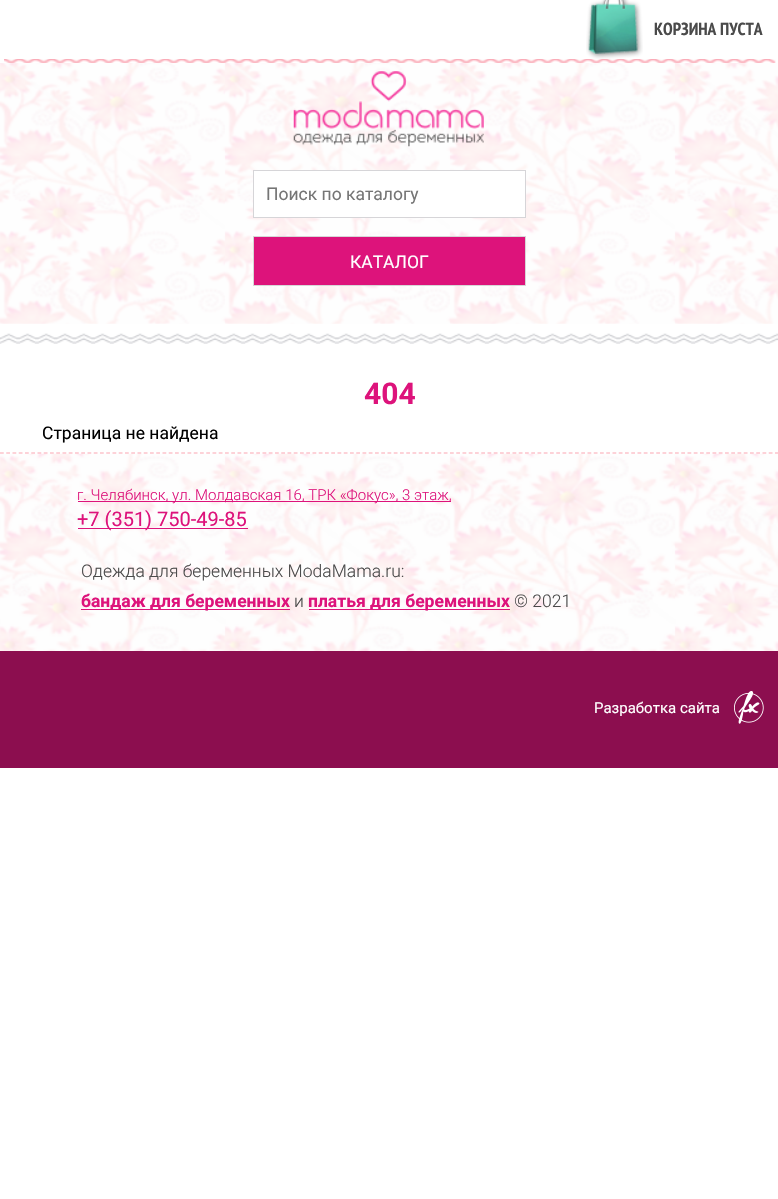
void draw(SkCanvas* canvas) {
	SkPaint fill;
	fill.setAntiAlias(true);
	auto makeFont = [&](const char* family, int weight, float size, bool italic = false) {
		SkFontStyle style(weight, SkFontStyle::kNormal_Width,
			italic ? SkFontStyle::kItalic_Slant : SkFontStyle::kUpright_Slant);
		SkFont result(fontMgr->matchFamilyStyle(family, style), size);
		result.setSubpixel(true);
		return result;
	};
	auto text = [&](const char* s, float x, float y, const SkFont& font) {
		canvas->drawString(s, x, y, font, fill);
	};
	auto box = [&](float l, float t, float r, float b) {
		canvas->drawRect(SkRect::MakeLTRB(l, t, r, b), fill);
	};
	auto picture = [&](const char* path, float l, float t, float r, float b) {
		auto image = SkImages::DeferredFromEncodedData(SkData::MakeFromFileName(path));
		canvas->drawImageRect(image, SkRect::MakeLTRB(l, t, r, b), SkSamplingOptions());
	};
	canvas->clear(0xFFFFFFFF);
	picture("image0.png", 586, 0, 643, 59);
	picture("image1.png", 4, 59, 776, 63);
	picture("image2.png", 0, 63, 778, 324);
	picture("image3.png", 293, 71, 484, 147);
	fill.setColor(0xFFFFFFFF);
	canvas->drawRect(SkRect::MakeLTRB(253.5f, 170.5f, 525.5f, 217.5f), fill);
	fill.setStyle(SkPaint::kStroke_Style);
	fill.setStrokeWidth(1);
	fill.setColor(0xFFD6D5D8);
	canvas->drawRect(SkRect::MakeLTRB(253.5f, 170.5f, 525.5f, 217.5f), fill);
	fill.setStyle(SkPaint::kFill_Style);
	fill.setColor(0xFFDD137B);
	canvas->drawRect(SkRect::MakeLTRB(253.5f, 236.5f, 525.5f, 285.5f), fill);
	fill.setStyle(SkPaint::kStroke_Style);
	fill.setColor(0xFFD7D7D7);
	canvas->drawRect(SkRect::MakeLTRB(253.5f, 236.5f, 525.5f, 285.5f), fill);
	picture("image4.png", 0, 333, 778, 344);
	picture("image5.png", 0, 453, 778, 651);
	fill.setStrokeWidth(1.2f);
	fill.setColor(0xFFFBA5B2);
	fill.setPathEffect(SkDashPathEffect::Make({{3.75f, 2.5f}}, 0));
	canvas->drawPath(SkPathBuilder().moveTo(0, 453).lineTo(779, 453).detach(), fill);
	fill.setPathEffect(nullptr);
	fill.setStyle(SkPaint::kFill_Style);
	fill.setColor(0xFFDD137B);
	box(78, 501, 451, 502);
	box(78, 528, 248, 529);
	box(81, 609, 290, 610);
	box(309, 609, 510, 610);
	fill.setColor(0xFF8C0E4F);
	box(0, 651, 778, 768);
	picture("image6.png", 734, 691, 764, 724);
	auto font1 = makeFont("PT Sans Narrow", 700, 17.5f);
	fill.setColor(0xFF4A4A4A);
	text("КОРЗИНА ПУСТА", 654, 35, font1);
	auto font2 = makeFont("Roboto", 400, 17.5f);
	fill.setColor(0xFF757575);
	text("Поиск по каталогу", 266, 200, font2);
	fill.setColor(0xFFFFFFFF);
	text("КАТАЛОГ", 350, 268, font2);
	auto font3 = makeFont("Roboto", 700, 30);
	fill.setColor(0xFFDD137B);
	text("404", 364, 404, font3);
	fill.setColor(0xFF000000);
	text("Страница не найдена", 42, 439, font2);
	auto font4 = makeFont("Roboto", 300, 15);
	fill.setColor(0xFFDD137B);
	text("г. Челябинск, ул. Молдавская 16, ТРК «Фокус», 3 этаж,", 77, 500, font4);
	auto font5 = makeFont("Roboto", 400, 20);
	text("+7 (351) 750-49-85", 77, 526, font5);
	auto font6 = makeFont("Roboto", 300, 17.5f);
	fill.setColor(0xFF4A4A4A);
	text("Одежда для беременных ModaMama.ru:", 81, 577, font6);
	auto font7 = makeFont("Roboto", 700, 17.5f);
	fill.setColor(0xFFDD137B);
	text("бандаж для беременных", 81, 607, font7);
	fill.setColor(0xFF4A4A4A);
	text("и", 294, 607, font6);
	fill.setColor(0xFFDD137B);
	text("платья для беременных", 308, 607, font7);
	fill.setColor(0xFF4A4A4A);
	text("© 2021", 514, 607, font6);
	auto font8 = makeFont("Roboto", 400, 15);
	fill.setColor(0xFFFFFFFF);
	text("Разработка сайта", 594, 713, font8);
}
